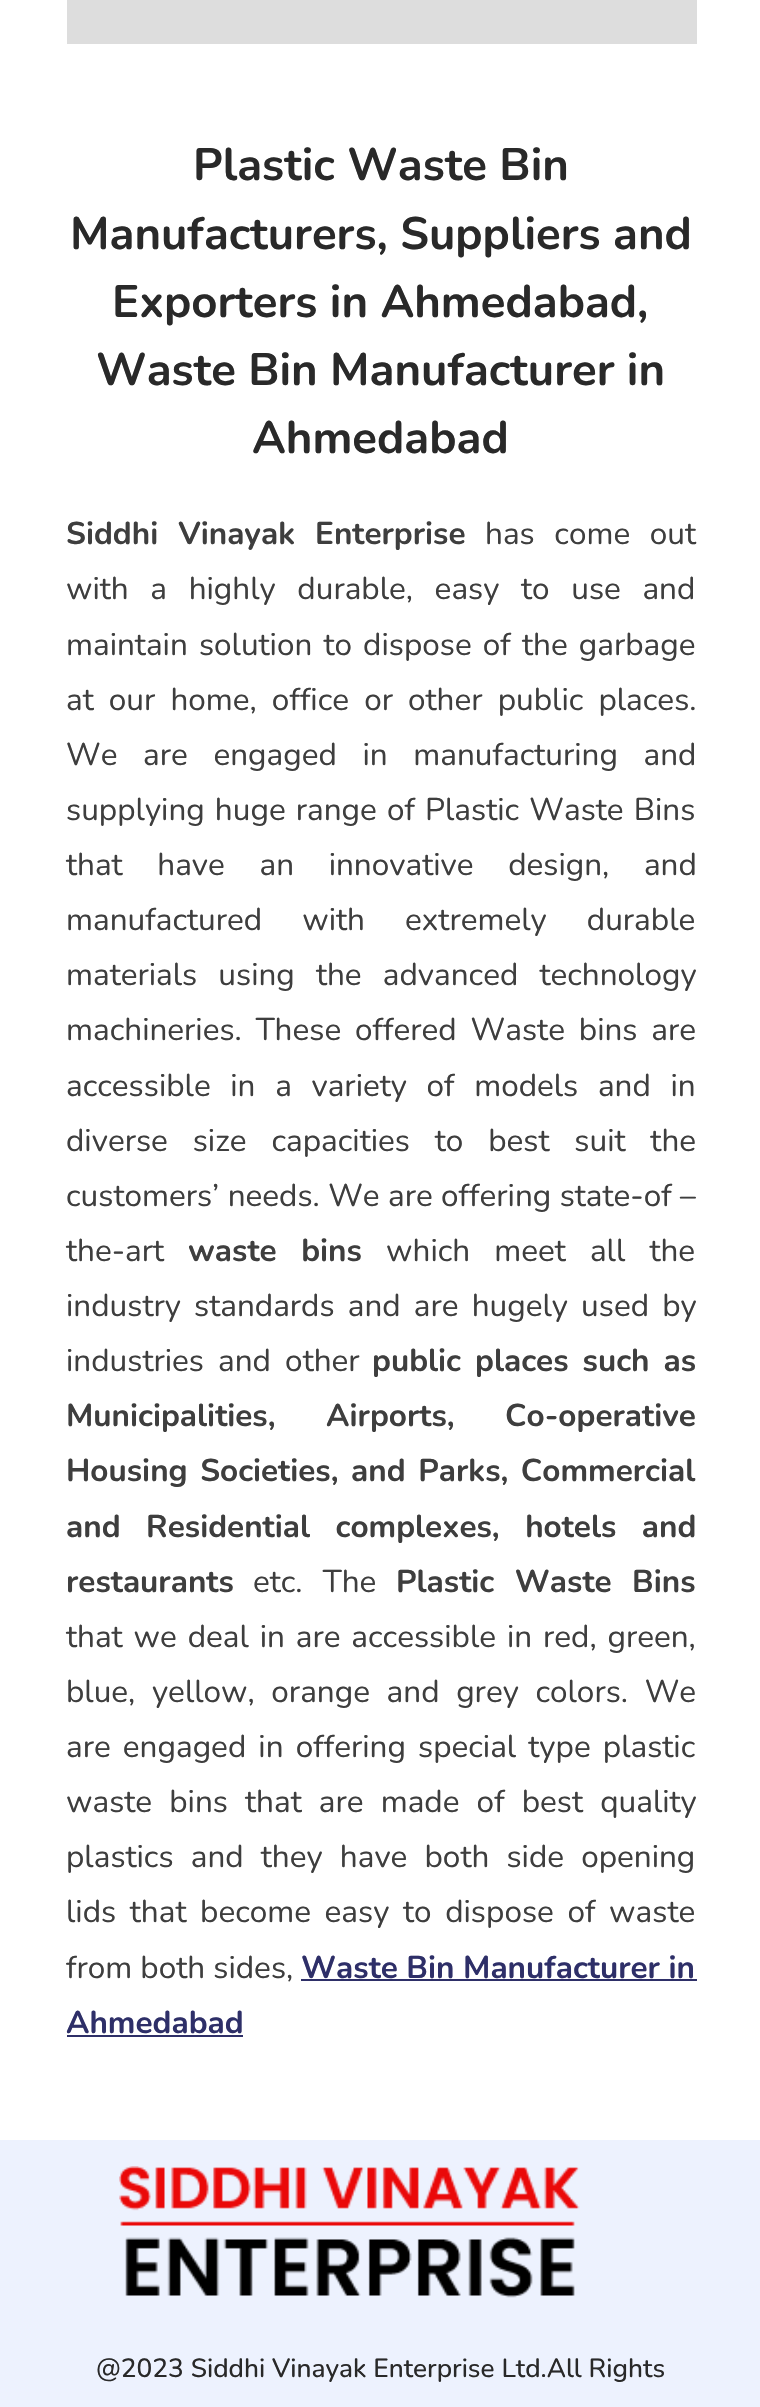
void draw(SkCanvas* canvas) {
	SkPaint fill;
	fill.setAntiAlias(true);
	auto makeFont = [&](const char* family, int weight, float size, bool italic = false) {
		SkFontStyle style(weight, SkFontStyle::kNormal_Width,
			italic ? SkFontStyle::kItalic_Slant : SkFontStyle::kUpright_Slant);
		SkFont result(fontMgr->matchFamilyStyle(family, style), size);
		result.setSubpixel(true);
		return result;
	};
	auto text = [&](const char* s, float x, float y, const SkFont& font) {
		canvas->drawString(s, x, y, font, fill);
	};
	auto spacedText = [&](const char* s, float x, float y, const SkFont& font, const SkPaint& ink, float letter, float word) {
		std::vector<SkGlyphID> glyphs(font.countText(s, strlen(s), SkTextEncoding::kUTF8));
		std::vector<float> xs(glyphs.size());
		font.textToGlyphs(s, strlen(s), SkTextEncoding::kUTF8, glyphs);
		font.getXPos(glyphs, xs, x);
		float extra = 0;
		for (size_t i = 0; i < glyphs.size(); i++) {
			xs[i] += extra;
			extra += letter + word * (glyphs[i] == font.unicharToGlyph(' '));
		}
		canvas->drawTextBlob(SkTextBlob::MakeFromPosHGlyphs(glyphs, xs, y, font), 0, 0, ink);
	};
	auto box = [&](float l, float t, float r, float b) {
		canvas->drawRect(SkRect::MakeLTRB(l, t, r, b), fill);
	};
	auto picture = [&](const char* path, float l, float t, float r, float b) {
		auto image = SkImages::DeferredFromEncodedData(SkData::MakeFromFileName(path));
		canvas->drawImageRect(image, SkRect::MakeLTRB(l, t, r, b), SkSamplingOptions());
	};
	canvas->clear(0xFFFFFFFF);
	fill.setColor(0xFFDDDDDD);
	box(67, 0, 697, 44);
	fill.setColor(0xFF2E2F68);
	box(301, 1979, 697, 1981);
	box(67, 2035, 243, 2037);
	fill.setColor(0xFFEDF2FE);
	box(0, 2140, 760, 2407);
	picture("image0.png", 119, 2166, 580, 2298);
	auto font1 = makeFont("Nunito", 700, 45.5f);
	fill.setColor(0xFF292929);
	text("Plastic Waste Bin", 193, 180, font1);
	text("Manufacturers, Suppliers and", 70, 249, font1);
	text("Exporters in Ahmedabad,", 112, 317, font1);
	text("Waste Bin Manufacturer in", 96, 385, font1);
	text("Ahmedabad", 252, 453, font1);
	auto font2 = makeFont("Nunito", 700, 31.5f);
	fill.setColor(0xFF3E3E3E);
	spacedText("Siddhi Vinayak Enterprise", 66, 544, font2, fill, 0, 11.5f);
	auto font3 = makeFont("Nunito", 400, 31.5f);
	spacedText("has come out", 485, 544, font3, fill, 0, 11.5f);
	spacedText("with a highly durable, easy to use and", 66, 599, font3, fill, 0, 13.5f);
	spacedText("maintain solution to dispose of the garbage", 66, 655, font3, fill, 0, 3);
	spacedText("at our home, office or other public places.", 66, 710, font3, fill, 0, 7);
	spacedText("We are engaged in manufacturing and", 66, 765, font3, fill, 0, 17.5f);
	spacedText("supplying huge range of Plastic Waste Bins", 66, 820, font3, fill, 0, 2);
	spacedText("that have an innovative design, and", 66, 875, font3, fill, 0, 26.5f);
	spacedText("manufactured with extremely durable", 66, 930, font3, fill, 0, 32);
	spacedText("materials using the advanced technology", 66, 985, font3, fill, 0, 13);
	spacedText("machineries. These offered Waste bins are", 66, 1040, font3, fill, 0, 5.75f);
	spacedText("accessible in a variety of models and in", 66, 1096, font3, fill, 0, 11.5f);
	spacedText("diverse size capacities to best suit the", 66, 1151, font3, fill, 0, 16.75f);
	spacedText("customers’ needs. We are offering state-of –", 66, 1206, font3, fill, 0, 0.25f);
	text("the-art", 66, 1261, font3);
	spacedText("waste bins", 188, 1261, font2, fill, 0, 16);
	spacedText("which meet all the", 386, 1261, font3, fill, 0, 16);
	spacedText("industry standards and are hugely used by", 66, 1316, font3, fill, 0, 5);
	spacedText("industries and other", 66, 1371, font3, fill, 0, 6);
	spacedText("public places such as", 372, 1371, font2, fill, 0, 5.5f);
	spacedText("Municipalities, Airports, Co-operative", 66, 1426, font2, fill, 0, 42);
	spacedText("Housing Societies, and Parks, Commercial", 66, 1481, font2, fill, 0, 4);
	spacedText("and Residential complexes, hotels and", 66, 1537, font2, fill, 0, 17);
	text("restaurants", 66, 1592, font2);
	spacedText("etc. The", 253, 1592, font3, fill, 0, 12);
	spacedText("Plastic Waste Bins", 396, 1592, font2, fill, 0, 12);
	spacedText("that we deal in are accessible in red, green,", 66, 1647, font3, fill, 0, 2.75f);
	spacedText("blue, yellow, orange and grey colors. We", 66, 1702, font3, fill, 0, 8.5f);
	spacedText("are engaged in offering special type plastic", 66, 1757, font3, fill, 0, 4);
	spacedText("waste bins that are made of best quality", 66, 1812, font3, fill, 0, 9);
	spacedText("plastics and they have both side opening", 66, 1867, font3, fill, 0, 9);
	spacedText("lids that become easy to dispose of waste", 66, 1922, font3, fill, 0, 5.5f);
	text("from both sides,", 66, 1978, font3);
	fill.setColor(0xFF2E2F68);
	text("Waste Bin Manufacturer in", 301, 1978, font2);
	text("Ahmedabad", 66, 2033, font2);
	auto font4 = makeFont("Nunito", 500, 26.25f);
	fill.setColor(0xFF292929);
	text("@2023 Siddhi Vinayak Enterprise Ltd.All Rights", 96, 2377, font4);
}
